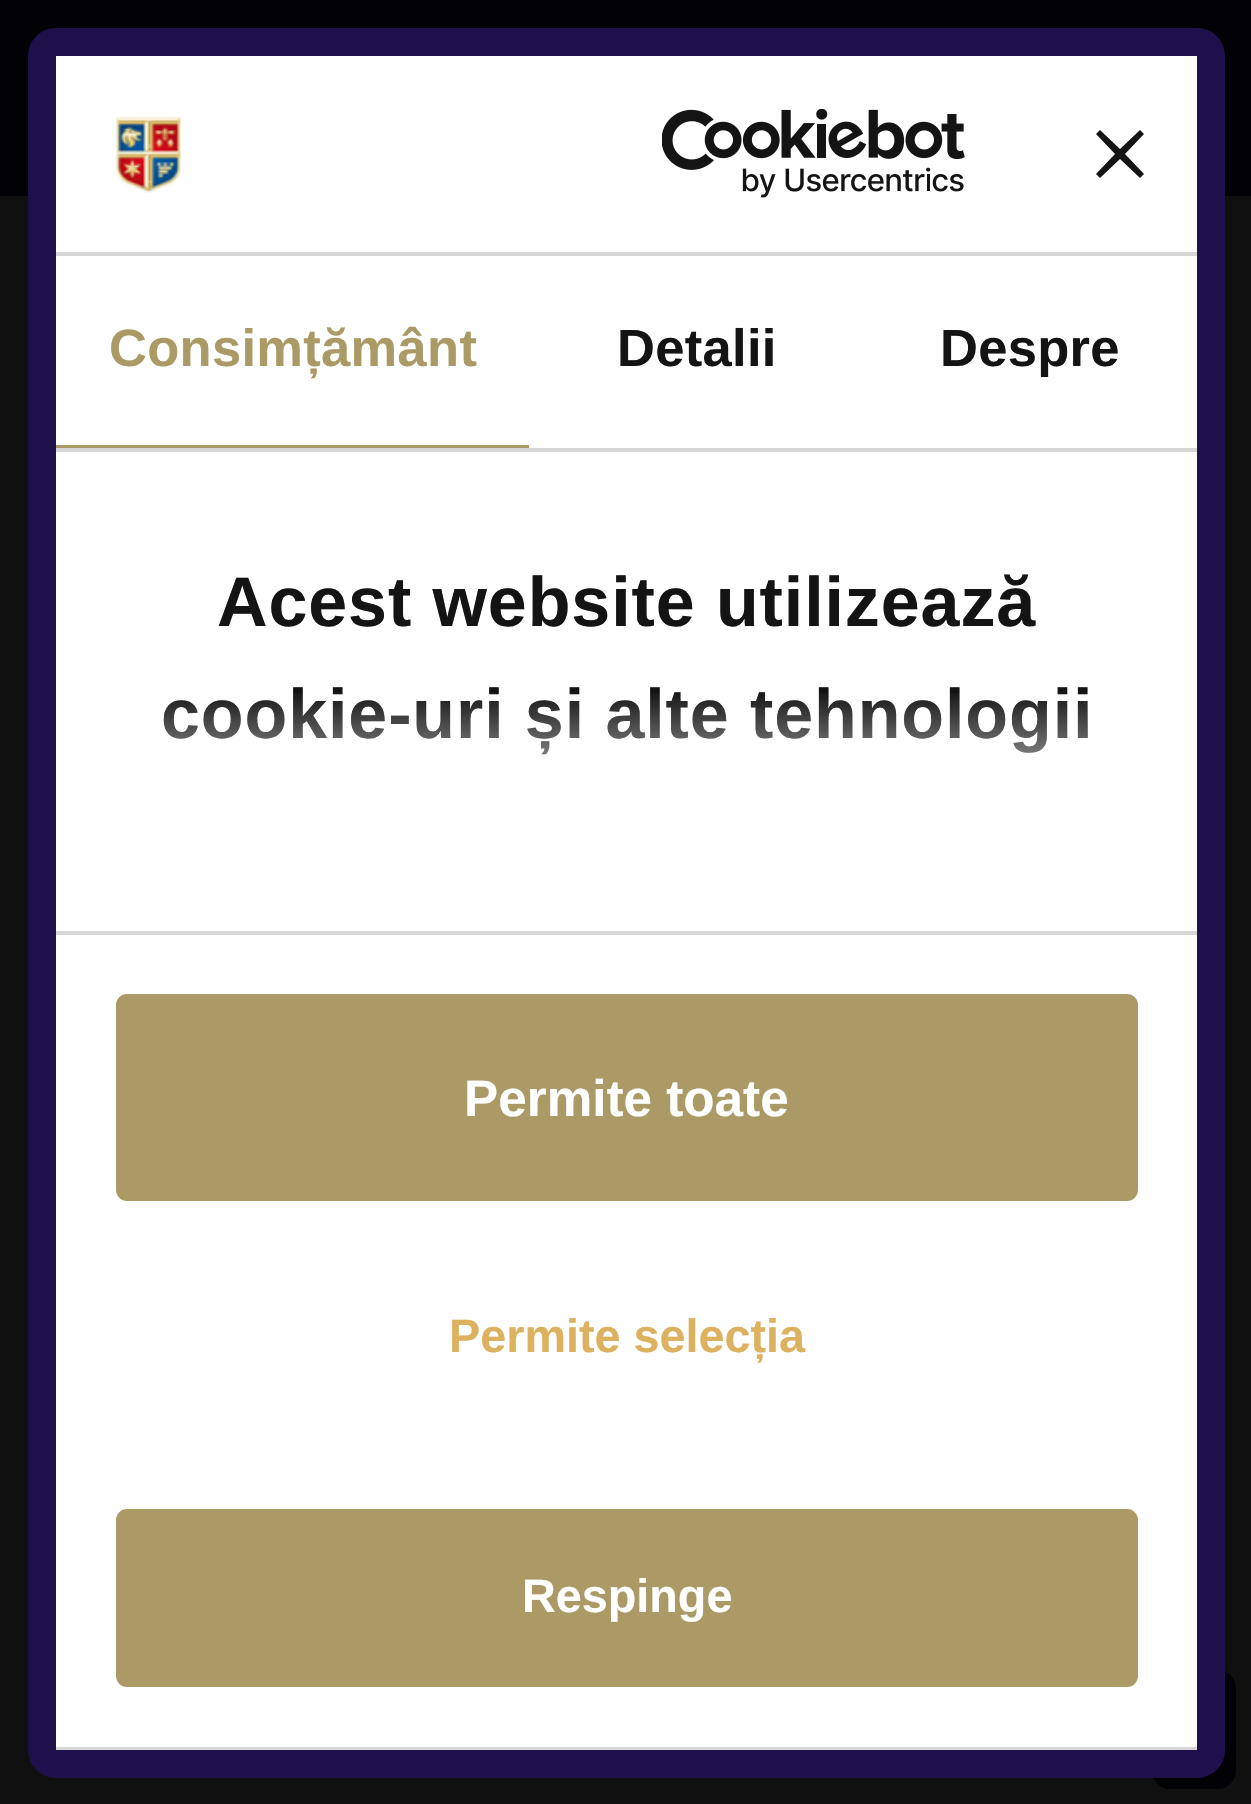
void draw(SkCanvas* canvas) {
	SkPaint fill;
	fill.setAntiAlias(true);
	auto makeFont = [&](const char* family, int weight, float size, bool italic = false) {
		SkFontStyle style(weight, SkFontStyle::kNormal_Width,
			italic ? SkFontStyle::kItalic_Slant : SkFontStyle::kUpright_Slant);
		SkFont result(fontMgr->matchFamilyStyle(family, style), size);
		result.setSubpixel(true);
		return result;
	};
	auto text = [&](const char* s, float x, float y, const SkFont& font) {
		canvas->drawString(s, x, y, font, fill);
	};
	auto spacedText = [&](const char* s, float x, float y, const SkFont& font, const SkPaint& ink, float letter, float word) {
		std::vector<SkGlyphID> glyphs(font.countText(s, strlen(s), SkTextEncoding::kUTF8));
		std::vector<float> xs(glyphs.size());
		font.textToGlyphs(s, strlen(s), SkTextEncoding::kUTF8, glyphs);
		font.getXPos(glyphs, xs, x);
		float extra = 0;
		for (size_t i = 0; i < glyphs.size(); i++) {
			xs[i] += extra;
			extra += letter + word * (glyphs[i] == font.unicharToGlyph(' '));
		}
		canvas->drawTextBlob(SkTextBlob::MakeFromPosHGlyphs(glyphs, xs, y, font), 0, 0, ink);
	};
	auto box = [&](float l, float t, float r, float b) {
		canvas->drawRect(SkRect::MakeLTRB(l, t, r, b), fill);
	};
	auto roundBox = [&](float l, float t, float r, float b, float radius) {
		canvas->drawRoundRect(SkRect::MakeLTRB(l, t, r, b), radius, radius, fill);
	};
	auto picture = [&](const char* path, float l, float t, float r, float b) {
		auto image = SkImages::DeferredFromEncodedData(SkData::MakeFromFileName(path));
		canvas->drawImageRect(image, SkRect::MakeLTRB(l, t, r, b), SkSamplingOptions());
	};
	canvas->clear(0xFF101010);
	fill.setColor(0xFF020105);
	box(0, 0, 1251, 196);
	roundBox(1152, 1670, 1236, 1789, 18);
	fill.setColor(0xFFFFFFFF);
	canvas->drawRoundRect(SkRect::MakeLTRB(42, 42, 1211, 1764), 14, 14, fill);
	fill.setStyle(SkPaint::kStroke_Style);
	fill.setStrokeWidth(28);
	fill.setColor(0xFF1E104A);
	canvas->drawRoundRect(SkRect::MakeLTRB(42, 42, 1211, 1764), 14, 14, fill);
	fill.setStyle(SkPaint::kFill_Style);
	fill.setColor(0xFFD6D6D6);
	box(56, 252, 1197, 256);
	picture("image0.png", 115, 116, 182, 193);
	picture("image1.png", 662, 109, 965, 198);
	fill.setColor(0xFF141414);
	canvas->drawPath(SkPathBuilder().moveTo(1144, 134).lineTo(1140, 130).lineTo(1120, 149).lineTo(1100, 130).lineTo(1096, 134).lineTo(1115, 154).lineTo(1096, 174).lineTo(1100, 178).lineTo(1120, 159).lineTo(1140, 178).lineTo(1144, 174).lineTo(1125, 154).close().detach(), fill);
	fill.setColor(0xFFD6D6D6);
	box(56, 448, 1197, 452);
	fill.setColor(0xFFAB9A65);
	box(56, 445, 529, 448);
	fill.setColor(0xFFD6D6D6);
	box(56, 931, 1197, 935);
	box(56, 1747, 1197, 1750);
	fill.setColor(0xFFAB9A65);
	canvas->drawRoundRect(SkRect::MakeLTRB(112.5f, 990.5f, 1141.5f, 1204.5f), 14.5f, 14.5f, fill);
	fill.setStyle(SkPaint::kStroke_Style);
	fill.setStrokeWidth(7);
	fill.setColor(0xFFFFFFFF);
	canvas->drawRoundRect(SkRect::MakeLTRB(112.5f, 990.5f, 1141.5f, 1204.5f), 14.5f, 14.5f, fill);
	fill.setStyle(SkPaint::kFill_Style);
	fill.setColor(0xFFAB9A65);
	canvas->drawRoundRect(SkRect::MakeLTRB(112.5f, 1505.5f, 1141.5f, 1690.5f), 14.5f, 14.5f, fill);
	fill.setStyle(SkPaint::kStroke_Style);
	fill.setColor(0xFFFFFFFF);
	canvas->drawRoundRect(SkRect::MakeLTRB(112.5f, 1505.5f, 1141.5f, 1690.5f), 14.5f, 14.5f, fill);
	auto font1 = makeFont("Liberation Sans", 700, 52.5f);
	fill.setStyle(SkPaint::kFill_Style);
	fill.setColor(0xFFAB9A65);
	spacedText("Consimțământ", 109, 366, font1, fill, 0.3f, 0);
	fill.setColor(0xFF141414);
	spacedText("Detalii", 617, 366, font1, fill, 0.3f, 0);
	spacedText("Despre", 940, 366, font1, fill, 0.3f, 0);
	auto font2 = makeFont("Liberation Sans", 700, 70);
	spacedText("Acest website utilizează", 217, 626, font2, fill, 0.9f, 0);
	spacedText("cookie-uri și alte tehnologii", 161, 738, font2, fill, 0.9f, 0);
	{
		const SkColor colors[] = {0xFFFFFFFF, 0xCCFFFFFF, 0x00FFFFFF};
		const float stops[] = {0, 0.5f, 1};
		const SkPoint ends[] = {{604, 931}, {604, 690}};
		fill.setShader(SkGradientShader::MakeLinear(ends, colors, stops, 3, SkTileMode::kClamp));
		fill.setAlpha(255);
	}
	box(163, 693, 1087, 755);
	auto font3 = makeFont("Liberation Sans", 700, 51.25f);
	fill.setShader(nullptr);
	fill.setColor(0xFFFFFFFF);
	text("Permite toate", 464, 1116, font3);
	auto font4 = makeFont("Liberation Sans", 700, 46.75f);
	fill.setColor(0xFFDCB261);
	text("Permite selecția", 449, 1352, font4);
	fill.setColor(0xFFFFFFFF);
	text("Respinge", 522, 1612, font4);
}
